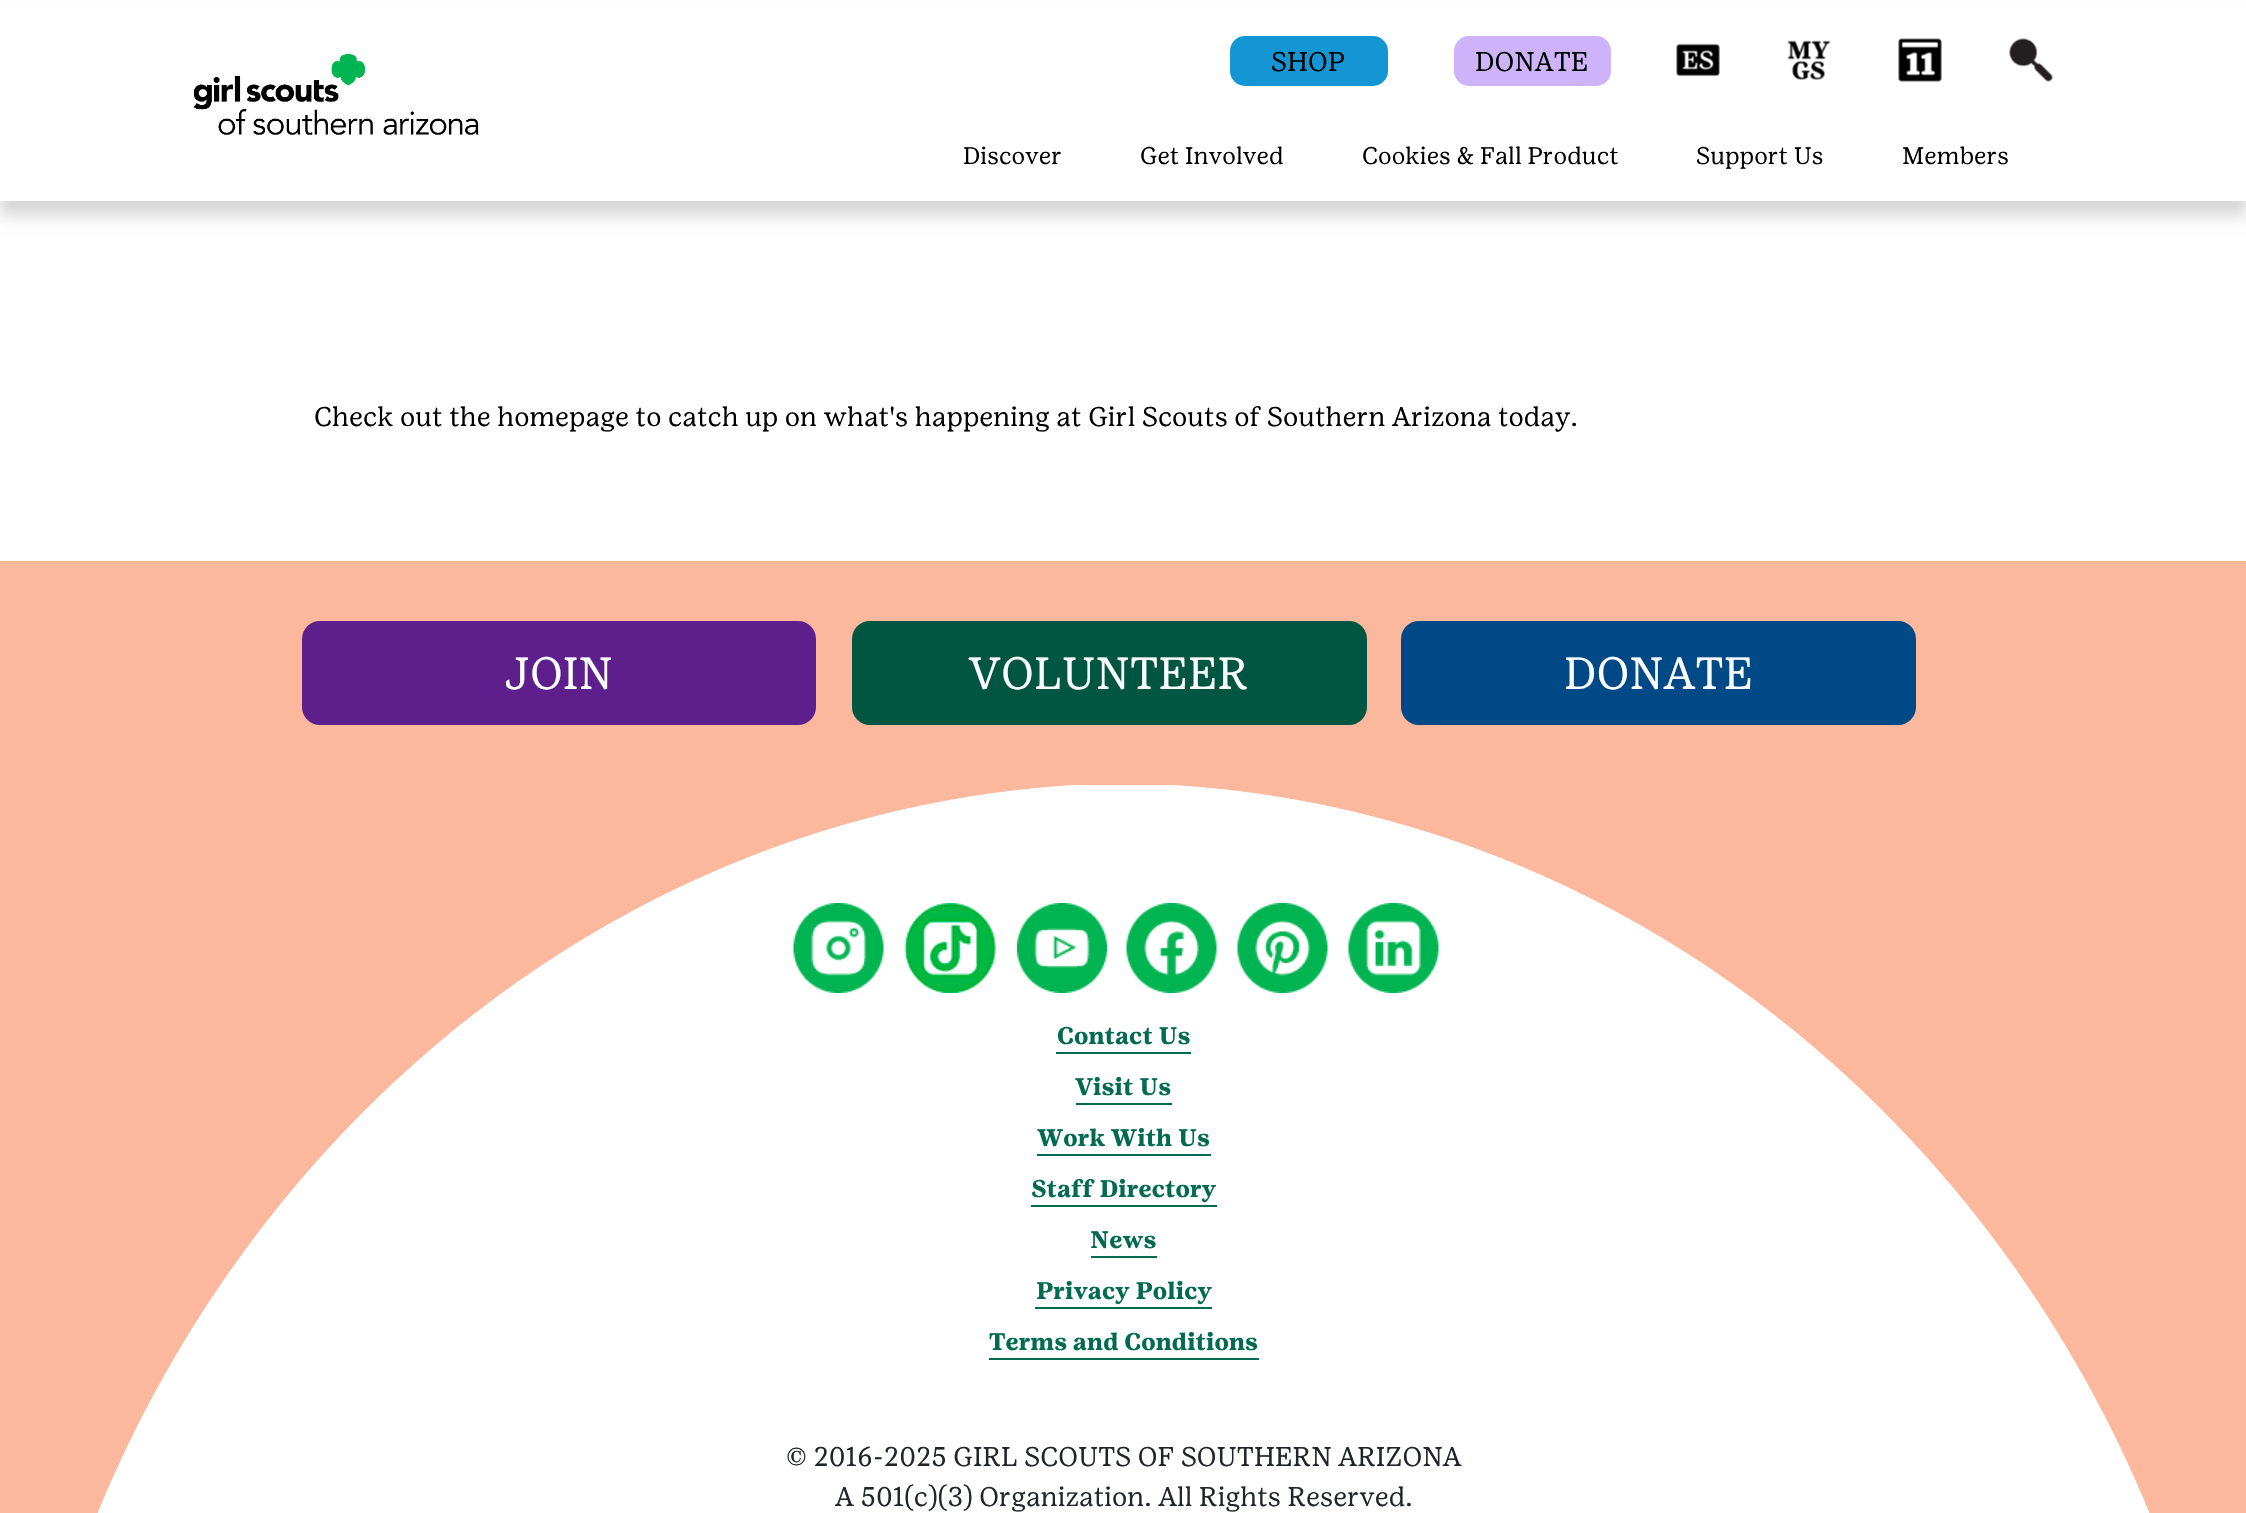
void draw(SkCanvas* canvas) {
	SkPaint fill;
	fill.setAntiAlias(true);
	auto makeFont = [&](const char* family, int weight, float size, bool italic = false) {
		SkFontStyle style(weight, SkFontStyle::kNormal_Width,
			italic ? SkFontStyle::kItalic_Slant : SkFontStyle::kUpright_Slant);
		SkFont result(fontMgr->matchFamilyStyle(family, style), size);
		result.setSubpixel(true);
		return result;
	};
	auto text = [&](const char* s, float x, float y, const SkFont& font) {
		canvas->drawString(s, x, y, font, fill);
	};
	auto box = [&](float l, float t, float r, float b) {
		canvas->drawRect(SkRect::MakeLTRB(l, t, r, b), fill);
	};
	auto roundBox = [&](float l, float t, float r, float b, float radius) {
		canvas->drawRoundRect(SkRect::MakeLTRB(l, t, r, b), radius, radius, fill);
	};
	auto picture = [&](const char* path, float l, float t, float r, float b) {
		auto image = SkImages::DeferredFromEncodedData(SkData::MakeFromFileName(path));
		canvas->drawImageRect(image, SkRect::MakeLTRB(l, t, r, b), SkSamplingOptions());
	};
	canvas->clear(0xFFFFFFFF);
	fill.setColor(0x29000000);
	fill.setMaskFilter(SkMaskFilter::MakeBlur(kNormal_SkBlurStyle, 7.5f));
	canvas->drawRect(SkRect::MakeLTRB(0, 15, 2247, 216), fill);
	fill.setMaskFilter(nullptr);
	fill.setColor(0xFFFFFFFF);
	box(0, 4, 2246, 201);
	picture("image0.png", 194, 53, 479, 135);
	fill.setColor(0xFF1496D4);
	roundBox(1230, 36, 1388, 86, 15);
	fill.setColor(0xFFCCB3FA);
	roundBox(1454, 36, 1611, 86, 15);
	picture("image1.png", 1676, 43, 1720, 77);
	picture("image2.png", 1787, 40, 1830, 80);
	picture("image3.png", 1898, 38, 1942, 82);
	picture("image4.png", 2009, 38, 2053, 82);
	fill.setColor(0xFFFCB89D);
	box(0, 561, 2246, 785);
	fill.setColor(0xFF5C1F8B);
	roundBox(302, 621, 816, 725, 18);
	fill.setColor(0xFF005640);
	roundBox(852, 621, 1367, 725, 18);
	fill.setColor(0xFF004987);
	roundBox(1401, 621, 1916, 725, 18);
	picture("image5.png", 0, 785, 2246, 1513);
	picture("image6.png", 793, 903, 884, 993);
	picture("image7.png", 904, 903, 996, 993);
	picture("image8.png", 1017, 903, 1107, 993);
	picture("image9.png", 1126, 903, 1217, 993);
	picture("image10.png", 1237, 903, 1328, 993);
	picture("image11.png", 1348, 903, 1439, 993);
	fill.setColor(0xFF006B50);
	box(1056, 1052, 1191, 1054);
	box(1076, 1103, 1172, 1105);
	box(1037, 1154, 1211, 1156);
	box(1031, 1205, 1217, 1207);
	box(1091, 1256, 1157, 1258);
	box(1035, 1307, 1212, 1309);
	box(989, 1358, 1259, 1360);
	auto font1 = makeFont("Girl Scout", 400, 27);
	fill.setColor(0xFF000000);
	text("SHOP", 1271, 71, font1);
	text("DONATE", 1475, 71, font1);
	auto font2 = makeFont("Girl Scout", 400, 24);
	text("Discover", 963, 164, font2);
	text("Get Involved", 1140, 164, font2);
	text("Cookies & Fall Product", 1362, 164, font2);
	text("Support Us", 1696, 164, font2);
	text("Members", 1902, 164, font2);
	text("Check out the homepage to catch up on what's happening at Girl Scouts of Southern Arizona today.", 314, 426, font1);
	auto font3 = makeFont("Girl Scout", 400, 45);
	fill.setColor(0xFFFFFFFF);
	text("JOIN", 504, 689, font3);
	text("VOLUNTEER", 968, 689, font3);
	text("DONATE", 1564, 689, font3);
	auto font4 = makeFont("Girl Scout", 700, 24);
	fill.setColor(0xFF006B50);
	text("Contact Us", 1057, 1044, font4);
	text("Visit Us", 1075, 1095, font4);
	text("Work With Us", 1037, 1146, font4);
	text("Staff Directory", 1031, 1197, font4);
	text("News", 1090, 1248, font4);
	text("Privacy Policy", 1036, 1299, font4);
	text("Terms and Conditions", 989, 1350, font4);
	fill.setColor(0xFF212529);
	text("© 2016-2025 GIRL SCOUTS OF SOUTHERN ARIZONA", 786, 1466, font1);
	text("A 501(c)(3) Organization. All Rights Reserved.", 835, 1506, font1);
}
